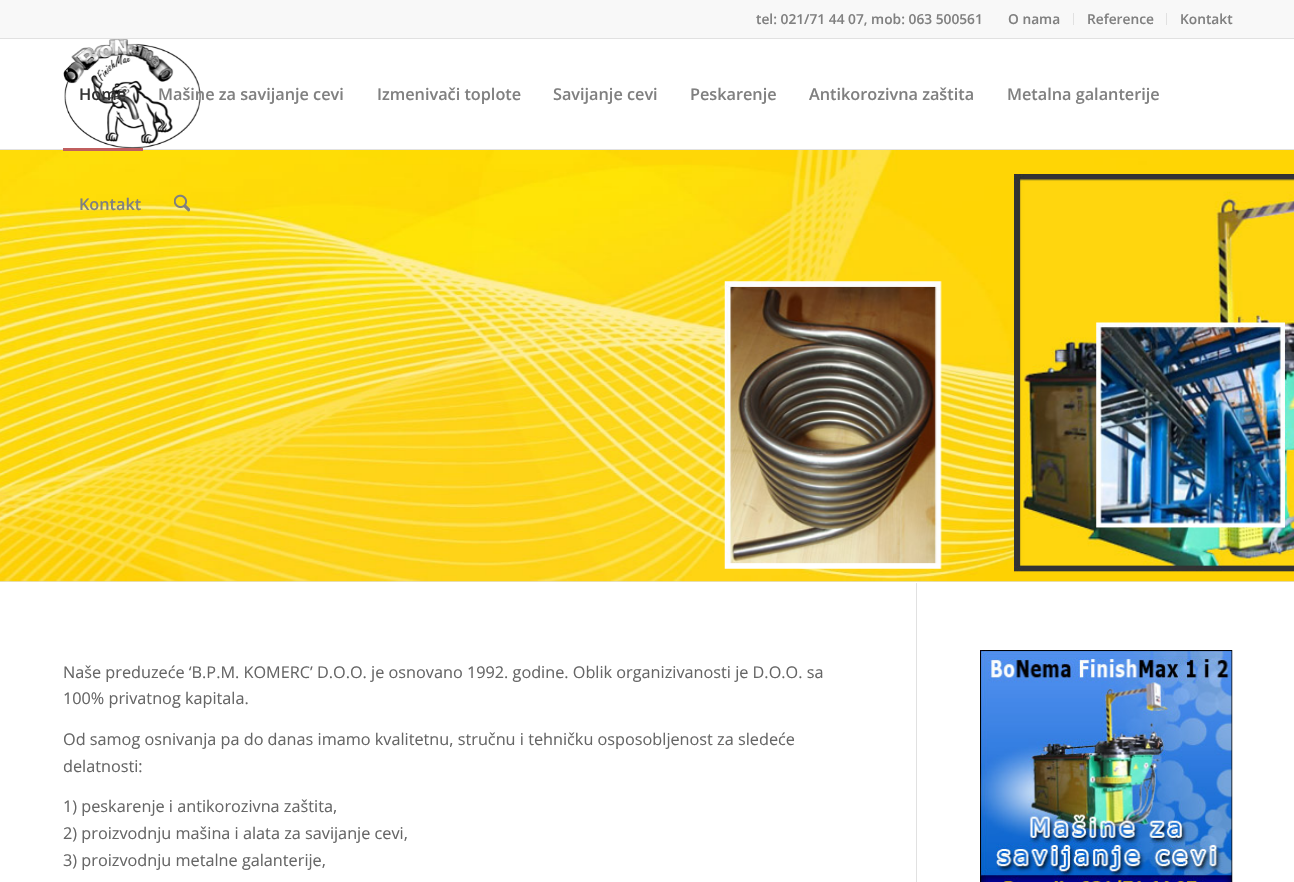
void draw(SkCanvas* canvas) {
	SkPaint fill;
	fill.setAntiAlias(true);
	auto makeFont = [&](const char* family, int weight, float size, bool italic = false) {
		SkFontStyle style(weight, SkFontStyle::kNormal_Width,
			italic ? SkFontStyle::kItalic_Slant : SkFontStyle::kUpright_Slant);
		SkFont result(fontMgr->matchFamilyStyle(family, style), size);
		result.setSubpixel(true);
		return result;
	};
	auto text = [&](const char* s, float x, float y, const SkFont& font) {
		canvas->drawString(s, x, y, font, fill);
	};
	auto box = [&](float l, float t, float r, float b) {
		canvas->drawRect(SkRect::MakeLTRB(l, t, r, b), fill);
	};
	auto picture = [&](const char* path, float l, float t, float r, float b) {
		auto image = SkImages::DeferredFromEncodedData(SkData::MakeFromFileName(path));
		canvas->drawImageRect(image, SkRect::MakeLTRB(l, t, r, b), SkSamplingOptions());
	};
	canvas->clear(0xFFFFFFFF);
	fill.setColor(0xFFF8F8F8);
	box(0, 0, 1294, 38);
	fill.setColor(0xFFE1E1E1);
	box(0, 38, 1294, 39);
	box(1073, 13, 1074, 25);
	box(1166, 13, 1167, 25);
	box(0, 149, 1294, 150);
	picture("image0.png", 63, 39, 201, 148);
	box(0, 581, 1294, 582);
	picture("image2.png", 0, 150, 1294, 582);
	fill.setColor(0xFFC05F5F);
	box(63, 148, 143, 151);
	picture("image1.png", 174, 194, 190, 212);
	picture("image3.png", 724, 281, 942, 569);
	picture("image4.png", 1014, 174, 1294, 572);
	picture("image5.png", 1096, 322, 1285, 528);
	fill.setColor(0xFFE1E1E1);
	box(916, 583, 917, 882);
	picture("image6.png", 980, 650, 1233, 882);
	auto font1 = makeFont("Open Sans", 600, 13.75f);
	fill.setColor(0xFF808080);
	text("tel: 021/71 44 07, mob: 063 500561", 756, 24, font1);
	text("O nama", 1008, 24, font1);
	text("Reference", 1087, 24, font1);
	text("Kontakt", 1180, 24, font1);
	auto font2 = makeFont("Open Sans", 600, 16.25f);
	fill.setColor(0xFF333333);
	text("Home", 79, 100, font2);
	fill.setColor(0xFF808080);
	text("Mašine za savijanje cevi", 158, 100, font2);
	text("Izmenivači toplote", 377, 100, font2);
	text("Savijanje cevi", 553, 100, font2);
	text("Peskarenje", 690, 100, font2);
	text("Antikorozivna zaštita", 809, 100, font2);
	text("Metalna galanterije", 1007, 100, font2);
	text("Kontakt", 79, 210, font2);
	auto font3 = makeFont("Open Sans", 400, 16.25f);
	fill.setColor(0xFF666666);
	text("Naše preduzeće ‘B.P.M. KOMERC’ D.O.O. je osnovano 1992. godine. Oblik organizivanosti je D.O.O. sa", 63, 678, font3);
	text("100% privatnog kapitala.", 63, 704, font3);
	text("Od samog osnivanja pa do danas imamo kvalitetnu, stručnu i tehničku osposobljenost za sledeće", 63, 745, font3);
	text("delatnosti:", 63, 772, font3);
	text("1) peskarenje i antikorozivna zaštita,", 63, 812, font3);
	text("2) proizvodnju mašina i alata za savijanje cevi,", 63, 839, font3);
	text("3) proizvodnju metalne galanterije,", 63, 866, font3);
}
